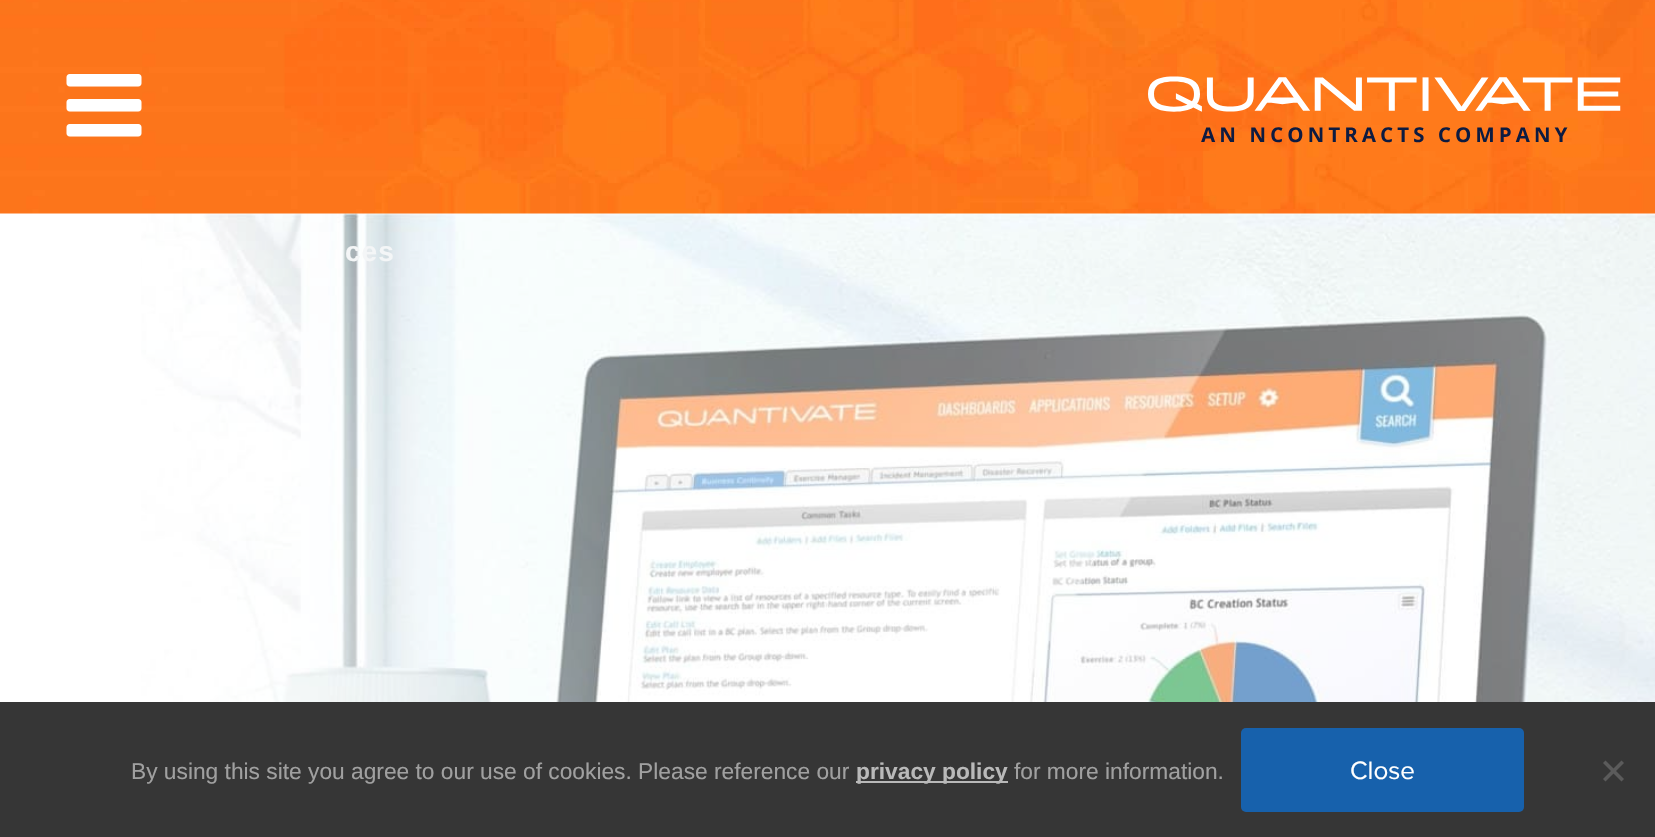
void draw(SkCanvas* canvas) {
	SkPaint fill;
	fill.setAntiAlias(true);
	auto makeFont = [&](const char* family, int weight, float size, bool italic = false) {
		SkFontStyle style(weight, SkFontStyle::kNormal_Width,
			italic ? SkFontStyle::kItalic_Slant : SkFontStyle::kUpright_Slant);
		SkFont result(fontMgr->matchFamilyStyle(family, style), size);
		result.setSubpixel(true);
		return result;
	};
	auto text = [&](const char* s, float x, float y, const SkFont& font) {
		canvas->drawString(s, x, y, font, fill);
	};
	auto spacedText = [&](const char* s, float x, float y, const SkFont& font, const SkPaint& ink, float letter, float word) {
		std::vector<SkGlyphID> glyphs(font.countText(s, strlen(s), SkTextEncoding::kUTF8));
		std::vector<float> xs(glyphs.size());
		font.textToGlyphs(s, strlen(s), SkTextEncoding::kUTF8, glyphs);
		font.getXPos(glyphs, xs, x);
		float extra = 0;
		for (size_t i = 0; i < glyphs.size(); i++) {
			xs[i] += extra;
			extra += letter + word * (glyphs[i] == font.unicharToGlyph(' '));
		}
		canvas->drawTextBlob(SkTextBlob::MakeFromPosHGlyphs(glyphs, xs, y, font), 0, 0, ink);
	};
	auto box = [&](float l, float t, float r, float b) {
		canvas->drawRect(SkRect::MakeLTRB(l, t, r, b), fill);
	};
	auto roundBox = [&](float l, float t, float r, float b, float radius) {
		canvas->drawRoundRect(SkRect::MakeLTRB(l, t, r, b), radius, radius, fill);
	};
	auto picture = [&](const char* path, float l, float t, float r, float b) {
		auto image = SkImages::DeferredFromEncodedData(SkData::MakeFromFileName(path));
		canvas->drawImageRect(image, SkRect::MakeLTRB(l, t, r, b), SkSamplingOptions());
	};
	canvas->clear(0xFFFFFFFF);
	picture("image0.png", 141, 213, 1655, 702);
	picture("image1.png", 0, 0, 1655, 214);
	picture("image2.png", 1148, 76, 1621, 143);
	picture("image3.png", 66, 74, 142, 137);
	fill.setColor(0xFF363636);
	box(0, 702, 1655, 837);
	fill.setColor(0xFFB9B9B9);
	box(856, 781, 1008, 783);
	fill.setColor(0xFF1761AC);
	roundBox(1241, 728, 1524, 812, 5);
	fill.setColor(0xFF5B5B5B);
	canvas->drawPath(SkPathBuilder().moveTo(1621.5f, 760.5f).lineTo(1624, 763).lineTo(1605.5f, 781.5f).lineTo(1603, 779).close().detach(), fill);
	canvas->drawPath(SkPathBuilder().moveTo(1603, 763).lineTo(1605.5f, 760.5f).lineTo(1624, 779).lineTo(1621.5f, 781.5f).close().detach(), fill);
	auto font1 = makeFont("Liberation Sans", 700, 28);
	fill.setColor(0xFFF4F6F7);
	spacedText("ces", 345, 261, font1, fill, 1, 0);
	auto font2 = makeFont("Liberation Sans", 400, 22.75f);
	fill.setColor(0xFFA0A0A0);
	text("By using this site you agree to our use of cookies. Please reference our", 131, 779, font2);
	auto font3 = makeFont("Liberation Sans", 700, 22.75f);
	fill.setColor(0xFFB9B9B9);
	text("privacy policy", 856, 779, font3);
	fill.setColor(0xFFA0A0A0);
	text("for more information.", 1014, 779, font2);
	auto font4 = makeFont("Proxima Nova", 400, 26);
	fill.setColor(0xFFFFFFFF);
	text("Close", 1350, 779, font4);
}
